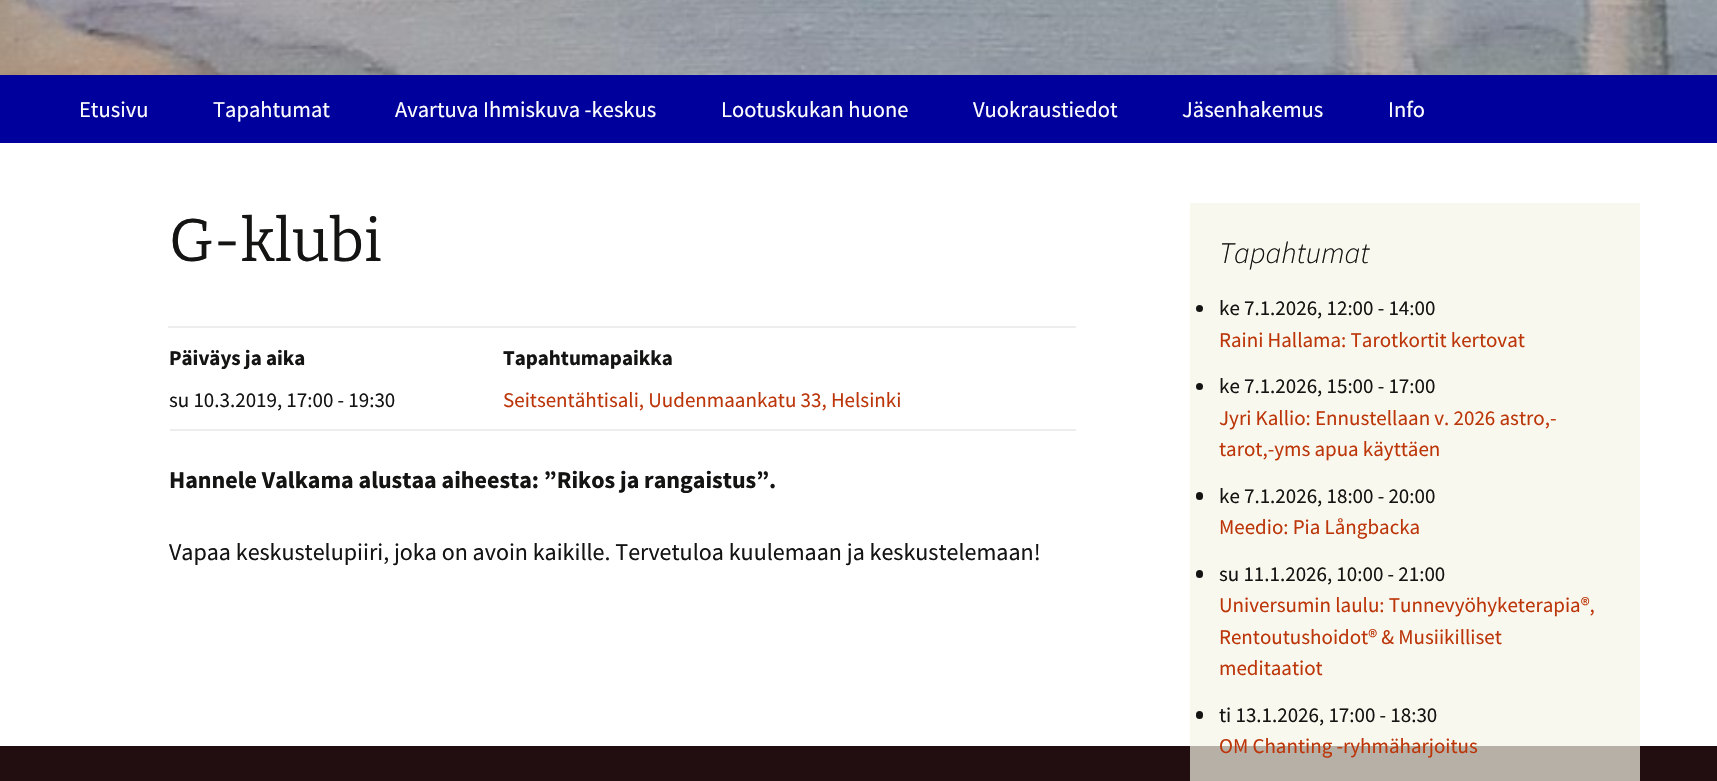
void draw(SkCanvas* canvas) {
	SkPaint fill;
	fill.setAntiAlias(true);
	auto makeFont = [&](const char* family, int weight, float size, bool italic = false) {
		SkFontStyle style(weight, SkFontStyle::kNormal_Width,
			italic ? SkFontStyle::kItalic_Slant : SkFontStyle::kUpright_Slant);
		SkFont result(fontMgr->matchFamilyStyle(family, style), size);
		result.setSubpixel(true);
		return result;
	};
	auto text = [&](const char* s, float x, float y, const SkFont& font) {
		canvas->drawString(s, x, y, font, fill);
	};
	auto box = [&](float l, float t, float r, float b) {
		canvas->drawRect(SkRect::MakeLTRB(l, t, r, b), fill);
	};
	auto roundBox = [&](float l, float t, float r, float b, float radius) {
		canvas->drawRoundRect(SkRect::MakeLTRB(l, t, r, b), radius, radius, fill);
	};
	auto picture = [&](const char* path, float l, float t, float r, float b) {
		auto image = SkImages::DeferredFromEncodedData(SkData::MakeFromFileName(path));
		canvas->drawImageRect(image, SkRect::MakeLTRB(l, t, r, b), SkSamplingOptions());
	};
	canvas->clear(0xFFFFFFFF);
	fill.setColor(0xFFF9F8EE);
	box(1190, 203, 1640, 746);
	picture("image0.png", 0, 0, 1717, 75);
	fill.setColor(0xFF00009C);
	box(0, 75, 1717, 143);
	fill.setColor(0xFFEDEDED);
	box(170, 429, 1076, 431);
	box(168, 326, 1076, 328);
	fill.setColor(0xFF141412);
	canvas->drawCircle(1199.5f, 308.5f, 3.5f, fill);
	canvas->drawCircle(1199.5f, 386.5f, 3.5f, fill);
	roundBox(1196, 492, 1203, 500, 3.5f);
	roundBox(1196, 570, 1203, 578, 3.5f);
	roundBox(1196, 711, 1203, 719, 3.5f);
	fill.setColor(0xFF220E10);
	box(0, 746, 1717, 781);
	fill.setColor(0xFFB7B0A7);
	box(1190, 746, 1640, 781);
	auto font1 = makeFont("Source Sans Pro", 400, 22.5f);
	fill.setColor(0xFFFFFFFF);
	text("Etusivu", 79, 117, font1);
	text("Tapahtumat", 213, 117, font1);
	text("Avartuva Ihmiskuva -keskus", 395, 117, font1);
	text("Lootuskukan huone", 721, 117, font1);
	text("Vuokraustiedot", 973, 117, font1);
	text("Jäsenhakemus", 1182, 117, font1);
	text("Info", 1388, 117, font1);
	auto font2 = makeFont("Bitter", 400, 60);
	fill.setColor(0xFF141412);
	text("G-klubi", 169, 261, font2);
	auto font3 = makeFont("Source Sans Pro", 700, 21);
	text("Päiväys ja aika", 169, 365, font3);
	auto font4 = makeFont("Source Sans Pro", 400, 21);
	text("su 10.3.2019, 17:00 - 19:30", 169, 407, font4);
	text("Tapahtumapaikka", 503, 365, font3);
	fill.setColor(0xFFBC360A);
	text("Seitsentähtisali, Uudenmaankatu 33, Helsinki", 503, 407, font4);
	auto font5 = makeFont("Source Sans Pro", 700, 24);
	fill.setColor(0xFF141412);
	text("Hannele Valkama alustaa aiheesta: ”Rikos ja rangaistus”.", 169, 488, font5);
	auto font6 = makeFont("Source Sans Pro", 400, 24);
	text("Vapaa keskustelupiiri, joka on avoin kaikille. Tervetuloa kuulemaan ja keskustelemaan!", 169, 560, font6);
	auto font7 = makeFont("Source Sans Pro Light", 300, 30, true);
	text("Tapahtumat", 1219, 263, font7);
	text("ke 7.1.2026, 12:00 - 14:00", 1219, 315, font4);
	fill.setColor(0xFFBC360A);
	text("Raini Hallama: Tarotkortit kertovat", 1219, 347, font4);
	fill.setColor(0xFF141412);
	text("ke 7.1.2026, 15:00 - 17:00", 1219, 393, font4);
	fill.setColor(0xFFBC360A);
	text("Jyri Kallio: Ennustellaan v. 2026 astro,-", 1219, 425, font4);
	text("tarot,-yms apua käyttäen", 1219, 456, font4);
	fill.setColor(0xFF141412);
	text("ke 7.1.2026, 18:00 - 20:00", 1219, 503, font4);
	fill.setColor(0xFFBC360A);
	text("Meedio: Pia Långbacka", 1219, 534, font4);
	fill.setColor(0xFF141412);
	text("su 11.1.2026, 10:00 - 21:00", 1219, 581, font4);
	fill.setColor(0xFFBC360A);
	text("Universumin laulu: Tunnevyöhyketerapia®,", 1219, 612, font4);
	text("Rentoutushoidot® & Musiikilliset", 1219, 644, font4);
	text("meditaatiot", 1219, 675, font4);
	fill.setColor(0xFF141412);
	text("ti 13.1.2026, 17:00 - 18:30", 1219, 722, font4);
	fill.setColor(0xFFBC360A);
	text("OM Chanting -ryhmäharjoitus", 1219, 753, font4);
}
